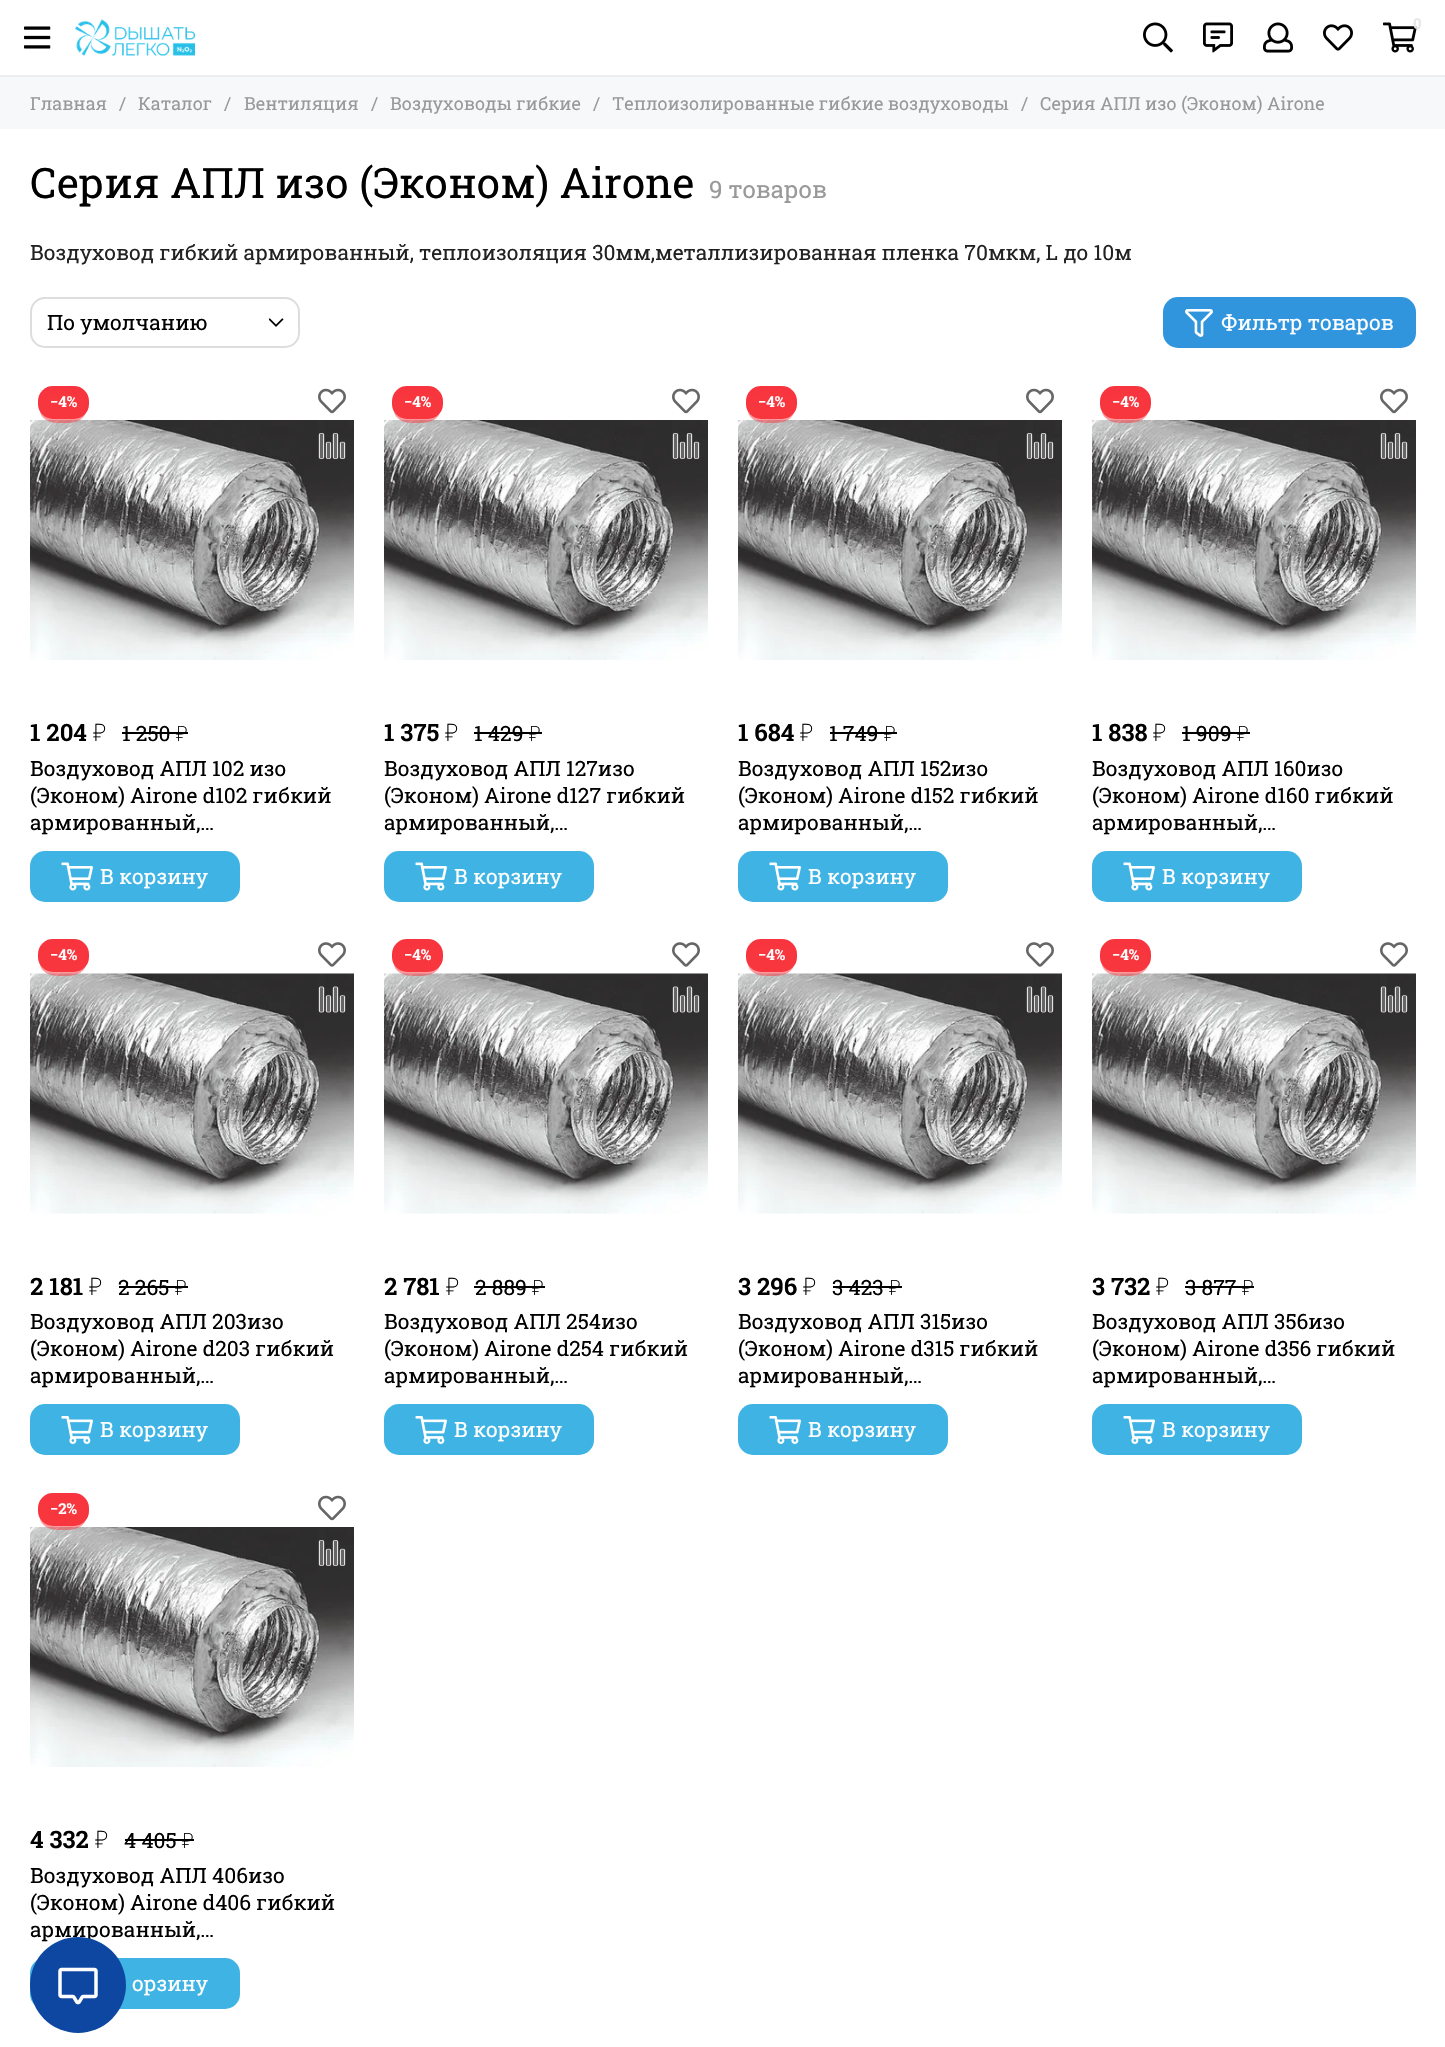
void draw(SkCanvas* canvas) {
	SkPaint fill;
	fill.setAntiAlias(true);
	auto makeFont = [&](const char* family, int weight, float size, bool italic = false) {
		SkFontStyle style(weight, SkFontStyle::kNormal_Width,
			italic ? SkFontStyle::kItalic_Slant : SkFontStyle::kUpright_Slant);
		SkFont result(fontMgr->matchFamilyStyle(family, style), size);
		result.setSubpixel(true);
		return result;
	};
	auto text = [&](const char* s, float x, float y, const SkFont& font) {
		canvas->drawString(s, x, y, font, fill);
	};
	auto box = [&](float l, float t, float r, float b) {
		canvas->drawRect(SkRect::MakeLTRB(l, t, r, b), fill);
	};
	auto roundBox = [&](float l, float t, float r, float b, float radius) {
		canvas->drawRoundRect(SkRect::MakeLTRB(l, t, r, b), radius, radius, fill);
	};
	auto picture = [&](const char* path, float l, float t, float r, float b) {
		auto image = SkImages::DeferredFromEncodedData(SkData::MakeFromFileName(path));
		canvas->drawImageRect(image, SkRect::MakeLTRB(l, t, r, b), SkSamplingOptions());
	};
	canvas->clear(0xFFFFFFFF);
	fill.setColor(0xFFEEEEEE);
	box(0, 75, 1445, 77);
	picture("image0.png", 24, 26, 51, 49);
	picture("image1.png", 75, 19, 195, 56);
	picture("image2.png", 1143, 22, 1173, 53);
	picture("image3.png", 1203, 22, 1233, 53);
	picture("image4.png", 1263, 22, 1293, 53);
	picture("image5.png", 1323, 24, 1353, 51);
	picture("image6.png", 1383, 22, 1417, 53);
	fill.setColor(0xFFF7F8FA);
	box(0, 77, 1445, 129);
	picture("image7.png", 269, 318, 284, 327);
	fill.setStyle(SkPaint::kStroke_Style);
	fill.setStrokeWidth(2);
	fill.setColor(0xFFDDDDDD);
	canvas->drawRoundRect(SkRect::MakeLTRB(31, 298, 299, 347), 14, 14, fill);
	fill.setStyle(SkPaint::kFill_Style);
	fill.setColor(0xFF3095DD);
	roundBox(1163, 297, 1416, 348, 15);
	picture("image8.png", 1185, 309, 1213, 337);
	fill.setColor(0xFFF8353E);
	roundBox(38, 386, 89, 419, 15);
	picture("image11.png", 30, 420, 354, 660);
	fill.setColor(0x80F8353E);
	canvas->drawPath(SkPathBuilder().moveTo(58, 393).lineTo(68, 393).cubicTo(77, 393, 86, 398, 86, 405).lineTo(86, 411).cubicTo(86, 418, 77, 423, 68, 423).lineTo(58, 423).cubicTo(49, 423, 40, 418, 40, 411).lineTo(40, 405).cubicTo(40, 398, 49, 393, 58, 393).close().detach(), fill);
	picture("image9.png", 318, 388, 346, 414);
	picture("image10.png", 318, 433, 346, 459);
	fill.setColor(0xFF000000);
	box(122, 732, 188, 734);
	fill.setColor(0xFF3FB4E4);
	roundBox(30, 851, 240, 902, 15);
	picture("image12.png", 61, 862, 93, 891);
	fill.setColor(0xFFF8353E);
	roundBox(392, 386, 443, 419, 15);
	picture("image11.png", 384, 420, 708, 660);
	fill.setColor(0x80F8353E);
	canvas->drawPath(SkPathBuilder().moveTo(412, 393).lineTo(422, 393).cubicTo(431, 393, 440, 398, 440, 405).lineTo(440, 411).cubicTo(440, 418, 431, 423, 422, 423).lineTo(412, 423).cubicTo(403, 423, 394, 418, 394, 411).lineTo(394, 405).cubicTo(394, 398, 403, 393, 412, 393).close().detach(), fill);
	picture("image9.png", 672, 388, 700, 414);
	picture("image10.png", 672, 433, 700, 459);
	fill.setColor(0xFF000000);
	box(474, 732, 542, 734);
	fill.setColor(0xFF3FB4E4);
	roundBox(384, 851, 594, 902, 15);
	picture("image12.png", 415, 862, 447, 891);
	fill.setColor(0xFFF8353E);
	roundBox(746, 386, 797, 419, 15);
	picture("image11.png", 738, 420, 1062, 660);
	fill.setColor(0x80F8353E);
	canvas->drawPath(SkPathBuilder().moveTo(766, 393).lineTo(776, 393).cubicTo(785, 393, 794, 398, 794, 405).lineTo(794, 411).cubicTo(794, 418, 785, 423, 776, 423).lineTo(766, 423).cubicTo(757, 423, 748, 418, 748, 411).lineTo(748, 405).cubicTo(748, 398, 757, 393, 766, 393).close().detach(), fill);
	picture("image9.png", 1026, 388, 1054, 414);
	picture("image10.png", 1026, 433, 1054, 459);
	fill.setColor(0xFF000000);
	box(830, 732, 897, 734);
	fill.setColor(0xFF3FB4E4);
	roundBox(738, 851, 948, 902, 15);
	picture("image12.png", 769, 862, 801, 891);
	fill.setColor(0xFFF8353E);
	roundBox(1100, 386, 1151, 419, 15);
	picture("image11.png", 1092, 420, 1416, 660);
	fill.setColor(0x80F8353E);
	canvas->drawPath(SkPathBuilder().moveTo(1120, 393).lineTo(1130, 393).cubicTo(1139, 393, 1148, 398, 1148, 405).lineTo(1148, 411).cubicTo(1148, 418, 1139, 423, 1130, 423).lineTo(1120, 423).cubicTo(1111, 423, 1102, 418, 1102, 411).lineTo(1102, 405).cubicTo(1102, 398, 1111, 393, 1120, 393).close().detach(), fill);
	picture("image9.png", 1380, 388, 1408, 414);
	picture("image10.png", 1380, 433, 1408, 459);
	fill.setColor(0xFF000000);
	box(1182, 732, 1250, 734);
	fill.setColor(0xFF3FB4E4);
	roundBox(1092, 851, 1302, 902, 15);
	picture("image12.png", 1123, 862, 1155, 891);
	fill.setColor(0xFFF8353E);
	roundBox(38, 939, 89, 972, 15);
	picture("image15.png", 30, 973, 354, 1214);
	fill.setColor(0x80F8353E);
	canvas->drawPath(SkPathBuilder().moveTo(58, 946).lineTo(68, 946).cubicTo(77, 946, 86, 952, 86, 958).lineTo(86, 964).cubicTo(86, 971, 77, 976, 68, 976).lineTo(58, 976).cubicTo(49, 976, 40, 971, 40, 964).lineTo(40, 958).cubicTo(40, 952, 49, 946, 58, 946).close().detach(), fill);
	picture("image13.png", 318, 942, 346, 967);
	picture("image14.png", 318, 986, 346, 1013);
	fill.setColor(0xFF000000);
	box(119, 1286, 188, 1288);
	fill.setColor(0xFF3FB4E4);
	roundBox(30, 1404, 240, 1455, 15);
	picture("image16.png", 61, 1416, 93, 1444);
	fill.setColor(0xFFF8353E);
	roundBox(392, 939, 443, 972, 15);
	picture("image15.png", 384, 973, 708, 1214);
	fill.setColor(0x80F8353E);
	canvas->drawPath(SkPathBuilder().moveTo(412, 946).lineTo(422, 946).cubicTo(431, 946, 440, 952, 440, 958).lineTo(440, 964).cubicTo(440, 971, 431, 976, 422, 976).lineTo(412, 976).cubicTo(403, 976, 394, 971, 394, 964).lineTo(394, 958).cubicTo(394, 952, 403, 946, 412, 946).close().detach(), fill);
	picture("image13.png", 672, 942, 700, 967);
	picture("image14.png", 672, 986, 700, 1013);
	fill.setColor(0xFF000000);
	box(474, 1286, 545, 1288);
	fill.setColor(0xFF3FB4E4);
	roundBox(384, 1404, 594, 1455, 15);
	picture("image16.png", 415, 1416, 447, 1444);
	fill.setColor(0xFFF8353E);
	roundBox(746, 939, 797, 972, 15);
	picture("image15.png", 738, 973, 1062, 1214);
	fill.setColor(0x80F8353E);
	canvas->drawPath(SkPathBuilder().moveTo(766, 946).lineTo(776, 946).cubicTo(785, 946, 794, 952, 794, 958).lineTo(794, 964).cubicTo(794, 971, 785, 976, 776, 976).lineTo(766, 976).cubicTo(757, 976, 748, 971, 748, 964).lineTo(748, 958).cubicTo(748, 952, 757, 946, 766, 946).close().detach(), fill);
	picture("image13.png", 1026, 942, 1054, 967);
	picture("image14.png", 1026, 986, 1054, 1013);
	fill.setColor(0xFF000000);
	box(833, 1286, 902, 1288);
	fill.setColor(0xFF3FB4E4);
	roundBox(738, 1404, 948, 1455, 15);
	picture("image16.png", 769, 1416, 801, 1444);
	fill.setColor(0xFFF8353E);
	roundBox(1100, 939, 1151, 972, 15);
	picture("image15.png", 1092, 973, 1416, 1214);
	fill.setColor(0x80F8353E);
	canvas->drawPath(SkPathBuilder().moveTo(1120, 946).lineTo(1130, 946).cubicTo(1139, 946, 1148, 952, 1148, 958).lineTo(1148, 964).cubicTo(1148, 971, 1139, 976, 1130, 976).lineTo(1120, 976).cubicTo(1111, 976, 1102, 971, 1102, 964).lineTo(1102, 958).cubicTo(1102, 952, 1111, 946, 1120, 946).close().detach(), fill);
	picture("image13.png", 1380, 942, 1408, 967);
	picture("image14.png", 1380, 986, 1408, 1013);
	fill.setColor(0xFF000000);
	box(1185, 1286, 1254, 1288);
	fill.setColor(0xFF3FB4E4);
	roundBox(1092, 1404, 1302, 1455, 15);
	picture("image16.png", 1123, 1416, 1155, 1444);
	fill.setColor(0xFFF8353E);
	roundBox(38, 1493, 89, 1526, 15);
	picture("image11.png", 30, 1527, 354, 1767);
	fill.setColor(0x80F8353E);
	canvas->drawPath(SkPathBuilder().moveTo(58, 1500).lineTo(68, 1500).cubicTo(77, 1500, 86, 1505, 86, 1512).lineTo(86, 1518).cubicTo(86, 1525, 77, 1530, 68, 1530).lineTo(58, 1530).cubicTo(49, 1530, 40, 1525, 40, 1518).lineTo(40, 1512).cubicTo(40, 1505, 49, 1500, 58, 1500).close().detach(), fill);
	picture("image9.png", 318, 1495, 346, 1521);
	picture("image10.png", 318, 1540, 346, 1566);
	fill.setColor(0xFF000000);
	box(125, 1839, 194, 1841);
	fill.setColor(0xFF3FB4E4);
	roundBox(30, 1958, 240, 2009, 15);
	auto font1 = makeFont("Roboto Slab", 600, 15);
	fill.setColor(0xFFE6E6E6);
	text("0", 1413, 29, font1);
	auto font2 = makeFont("Roboto Slab", 400, 18);
	fill.setColor(0xFF999999);
	text("Главная", 30, 110, font2);
	text("/", 119, 110, font2);
	text("Каталог", 138, 110, font2);
	text("/", 224, 110, font2);
	text("Вентиляция", 244, 110, font2);
	text("/", 371, 110, font2);
	text("Воздуховоды гибкие", 390, 110, font2);
	text("/", 593, 110, font2);
	text("Теплоизолированные гибкие воздуховоды", 612, 110, font2);
	text("/", 1021, 110, font2);
	text("Серия АПЛ изо (Эконом) Airone", 1040, 110, font2);
	auto font3 = makeFont("Roboto Slab", 400, 42);
	fill.setColor(0xFF000000);
	text("Серия АПЛ изо (Эконом) Airone", 30, 198, font3);
	auto font4 = makeFont("Roboto Slab", 400, 24);
	fill.setColor(0xFF999999);
	text("9 товаров", 709, 198, font4);
	auto font5 = makeFont("Roboto Slab", 400, 21);
	fill.setColor(0xFF222222);
	text("Воздуховод гибкий армированный, теплоизоляция 30мм,металлизированная пленка 70мкм, L до 10м", 30, 260, font5);
	fill.setColor(0xFF000000);
	text("По умолчанию", 47, 330, font5);
	fill.setColor(0xFFFFFFFF);
	text("Фильтр товаров", 1221, 330, font5);
	text("−4%", 50, 407, font1);
	auto font6 = makeFont("Roboto Slab", 600, 24);
	fill.setColor(0xFF000000);
	text("1 204", 30, 741, font6);
	auto font7 = makeFont("Noto Sans", 200, 24);
	text("₽", 93, 741, font7);
	text("1 250", 122, 741, font5);
	auto font8 = makeFont("Noto Sans", 200, 21);
	text("₽", 176, 741, font8);
	text("Воздуховод АПЛ 102 изо", 30, 776, font5);
	text("(Эконом) Airone d102 гибкий", 30, 803, font5);
	text("армированный,…", 30, 830, font5);
	fill.setColor(0xFFFFFFFF);
	text("В корзину", 100, 884, font5);
	text("−4%", 404, 407, font1);
	fill.setColor(0xFF000000);
	text("1 375", 384, 741, font6);
	text("₽", 445, 741, font7);
	text("1 429", 474, 741, font5);
	text("₽", 529, 741, font8);
	text("Воздуховод АПЛ 127изо", 384, 776, font5);
	text("(Эконом) Airone d127 гибкий", 384, 803, font5);
	text("армированный,…", 384, 830, font5);
	fill.setColor(0xFFFFFFFF);
	text("В корзину", 454, 884, font5);
	text("−4%", 758, 407, font1);
	fill.setColor(0xFF000000);
	text("1 684", 738, 741, font6);
	text("₽", 800, 741, font7);
	text("1 749", 829, 741, font5);
	text("₽", 884, 741, font8);
	text("Воздуховод АПЛ 152изо", 738, 776, font5);
	text("(Эконом) Airone d152 гибкий", 738, 803, font5);
	text("армированный,…", 738, 830, font5);
	fill.setColor(0xFFFFFFFF);
	text("В корзину", 808, 884, font5);
	text("−4%", 1112, 407, font1);
	fill.setColor(0xFF000000);
	text("1 838", 1092, 741, font6);
	text("₽", 1153, 741, font7);
	text("1 909", 1182, 741, font5);
	text("₽", 1237, 741, font8);
	text("Воздуховод АПЛ 160изо", 1092, 776, font5);
	text("(Эконом) Airone d160 гибкий", 1092, 803, font5);
	text("армированный,…", 1092, 830, font5);
	fill.setColor(0xFFFFFFFF);
	text("В корзину", 1162, 884, font5);
	text("−4%", 50, 960, font1);
	fill.setColor(0xFF000000);
	text("2 181", 30, 1295, font6);
	text("₽", 89, 1295, font7);
	text("2 265", 118, 1295, font5);
	text("₽", 175, 1295, font8);
	text("Воздуховод АПЛ 203изо", 30, 1329, font5);
	text("(Эконом) Airone d203 гибкий", 30, 1356, font5);
	text("армированный,…", 30, 1383, font5);
	fill.setColor(0xFFFFFFFF);
	text("В корзину", 100, 1437, font5);
	text("−4%", 404, 960, font1);
	fill.setColor(0xFF000000);
	text("2 781", 384, 1295, font6);
	text("₽", 446, 1295, font7);
	text("2 889", 475, 1295, font5);
	text("₽", 532, 1295, font8);
	text("Воздуховод АПЛ 254изо", 384, 1329, font5);
	text("(Эконом) Airone d254 гибкий", 384, 1356, font5);
	text("армированный,…", 384, 1383, font5);
	fill.setColor(0xFFFFFFFF);
	text("В корзину", 454, 1437, font5);
	text("−4%", 758, 960, font1);
	fill.setColor(0xFF000000);
	text("3 296", 738, 1295, font6);
	text("₽", 803, 1295, font7);
	text("3 423", 832, 1295, font5);
	text("₽", 889, 1295, font8);
	text("Воздуховод АПЛ 315изо", 738, 1329, font5);
	text("(Эконом) Airone d315 гибкий", 738, 1356, font5);
	text("армированный,…", 738, 1383, font5);
	fill.setColor(0xFFFFFFFF);
	text("В корзину", 808, 1437, font5);
	text("−4%", 1112, 960, font1);
	fill.setColor(0xFF000000);
	text("3 732", 1092, 1295, font6);
	text("₽", 1156, 1295, font7);
	text("3 877", 1185, 1295, font5);
	text("₽", 1242, 1295, font8);
	text("Воздуховод АПЛ 356изо", 1092, 1329, font5);
	text("(Эконом) Airone d356 гибкий", 1092, 1356, font5);
	text("армированный,…", 1092, 1383, font5);
	fill.setColor(0xFFFFFFFF);
	text("В корзину", 1162, 1437, font5);
	text("−2%", 50, 1514, font1);
	fill.setColor(0xFF000000);
	text("4 332", 30, 1848, font6);
	text("₽", 95, 1848, font7);
	text("4 405", 124, 1848, font5);
	text("₽", 182, 1848, font8);
	text("Воздуховод АПЛ 406изо", 30, 1883, font5);
	text("(Эконом) Airone d406 гибкий", 30, 1910, font5);
	text("армированный,…", 30, 1937, font5);
	fill.setColor(0xFFFFFFFF);
	text("орзину", 132, 1991, font5);
	fill.setColor(0xFF0D47A1);
	canvas->drawCircle(78, 1985, 48, fill);
	picture("image17.png", 58, 1967, 98, 2005);
}
